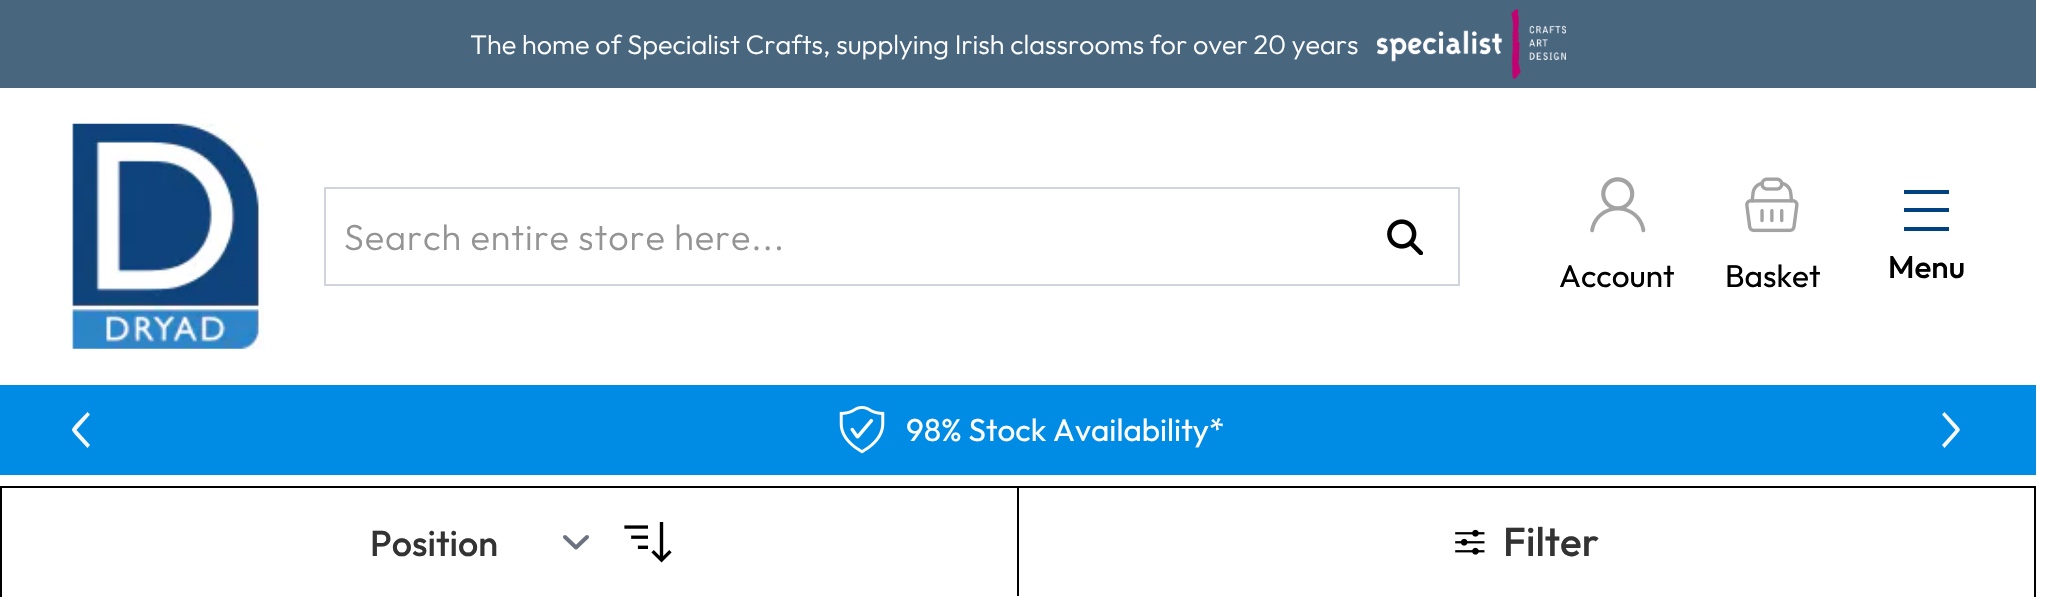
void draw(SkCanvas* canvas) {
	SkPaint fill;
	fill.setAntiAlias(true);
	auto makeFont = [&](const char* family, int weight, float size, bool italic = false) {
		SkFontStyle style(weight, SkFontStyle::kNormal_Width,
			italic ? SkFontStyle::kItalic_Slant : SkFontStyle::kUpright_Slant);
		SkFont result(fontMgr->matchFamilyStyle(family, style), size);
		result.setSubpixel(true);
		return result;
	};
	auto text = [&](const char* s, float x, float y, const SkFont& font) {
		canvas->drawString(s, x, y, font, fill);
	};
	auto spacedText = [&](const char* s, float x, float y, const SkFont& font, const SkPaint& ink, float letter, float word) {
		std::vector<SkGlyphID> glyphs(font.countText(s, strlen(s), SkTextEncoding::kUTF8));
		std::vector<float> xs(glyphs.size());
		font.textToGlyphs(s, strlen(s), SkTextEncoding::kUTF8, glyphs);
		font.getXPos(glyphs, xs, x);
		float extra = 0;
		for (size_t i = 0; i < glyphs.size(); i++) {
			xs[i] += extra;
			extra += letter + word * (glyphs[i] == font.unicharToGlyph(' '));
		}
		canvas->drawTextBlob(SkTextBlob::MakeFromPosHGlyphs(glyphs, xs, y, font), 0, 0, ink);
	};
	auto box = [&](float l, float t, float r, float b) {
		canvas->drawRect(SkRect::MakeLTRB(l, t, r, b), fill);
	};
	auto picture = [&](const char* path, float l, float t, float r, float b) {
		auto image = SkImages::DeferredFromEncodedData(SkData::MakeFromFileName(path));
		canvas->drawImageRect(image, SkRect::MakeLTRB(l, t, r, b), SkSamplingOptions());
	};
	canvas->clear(0xFFFFFFFF);
	fill.setColor(0xFF49667F);
	box(0, 0, 2036, 88);
	picture("image0.png", 1377, 9, 1566, 79);
	picture("image1.png", 69, 123, 265, 349);
	fill.setStyle(SkPaint::kStroke_Style);
	fill.setStrokeWidth(2);
	fill.setColor(0xFFD1D5DB);
	canvas->drawRect(SkRect::MakeLTRB(325, 188, 1459, 285), fill);
	picture("image2.png", 1387, 219, 1423, 255);
	picture("image3.png", 1590, 177, 1646, 233);
	picture("image4.png", 1745, 177, 1799, 233);
	canvas->save();
	canvas->clipRect(SkRect::MakeLTRB(1904, 187, 1949, 232));
	fill.setStyle(SkPaint::kFill_Style);
	fill.setColor(0xFF00417F);
	canvas->drawPath(SkPathBuilder().moveTo(1897, 194).lineTo(1897, 190).lineTo(1957, 190).lineTo(1957, 194).close().moveTo(1957, 208).lineTo(1957, 212).lineTo(1897, 212).lineTo(1897, 208).close().moveTo(1897, 227).lineTo(1957, 227).lineTo(1957, 231).lineTo(1897, 231).close().detach(), fill);
	canvas->restore();
	fill.setColor(0xFF008CE5);
	box(0, 385, 2036, 475);
	fill.setColor(0xFFF8F7FC);
	canvas->drawPath(SkPathBuilder().moveTo(90, 445).lineTo(87.5f, 448).lineTo(75, 434.5f).cubicTo(71, 429.5f, 71, 430, 75, 425).lineTo(87.5f, 412).lineTo(90, 414.5f).lineTo(76.5f, 430).close().detach(), fill);
	canvas->drawPath(SkPathBuilder().moveTo(1942, 445).lineTo(1944.5f, 448).lineTo(1956.5f, 434.5f).cubicTo(1961, 429.5f, 1961, 430, 1956.5f, 425).lineTo(1944.5f, 412).lineTo(1942, 414.5f).lineTo(1955.5f, 430).close().detach(), fill);
	picture("image5.png", 839, 406, 885, 454);
	fill.setStyle(SkPaint::kStroke_Style);
	fill.setColor(0xFF000000);
	canvas->drawRect(SkRect::MakeLTRB(1, 487, 2035, 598), fill);
	fill.setStyle(SkPaint::kFill_Style);
	box(1017, 488, 1019, 596);
	fill.setStyle(SkPaint::kStroke_Style);
	fill.setStrokeWidth(4);
	fill.setStrokeCap(SkPaint::kRound_Cap);
	fill.setStrokeJoin(SkPaint::kRound_Join);
	fill.setColor(0xFF6B7280);
	canvas->drawPath(SkPathBuilder().moveTo(565, 537).lineTo(576, 547.5f).lineTo(587, 537).detach(), fill);
	picture("image6.png", 624, 522, 672, 563);
	picture("image7.png", 1455, 529, 1485, 555);
	auto font1 = makeFont("Outfit", 300, 27);
	fill.setStyle(SkPaint::kFill_Style);
	fill.setColor(0xFFFFFFFF);
	text("The home of Specialist Crafts, supplying Irish classrooms for over 20 years", 470, 54, font1);
	auto font2 = makeFont("Outfit", 300, 36);
	fill.setColor(0xFF949494);
	spacedText("Search entire store here...", 344, 250, font2, fill, 0.9f, 0);
	auto font3 = makeFont("Outfit", 400, 31.5f);
	fill.setColor(0xFF000000);
	text("Account", 1559, 287, font3);
	text("Basket", 1725, 287, font3);
	auto font4 = makeFont("Outfit", 500, 31.5f);
	text("Menu", 1888, 278, font4);
	fill.setColor(0xFFFFFFFF);
	text("98% Stock Availability*", 906, 441, font3);
	auto font5 = makeFont("Outfit", 500, 36);
	fill.setColor(0xFF333333);
	text("Position", 370, 556, font5);
	auto font6 = makeFont("Outfit", 500, 40.5f);
	text("Filter", 1503, 556, font6);
}
